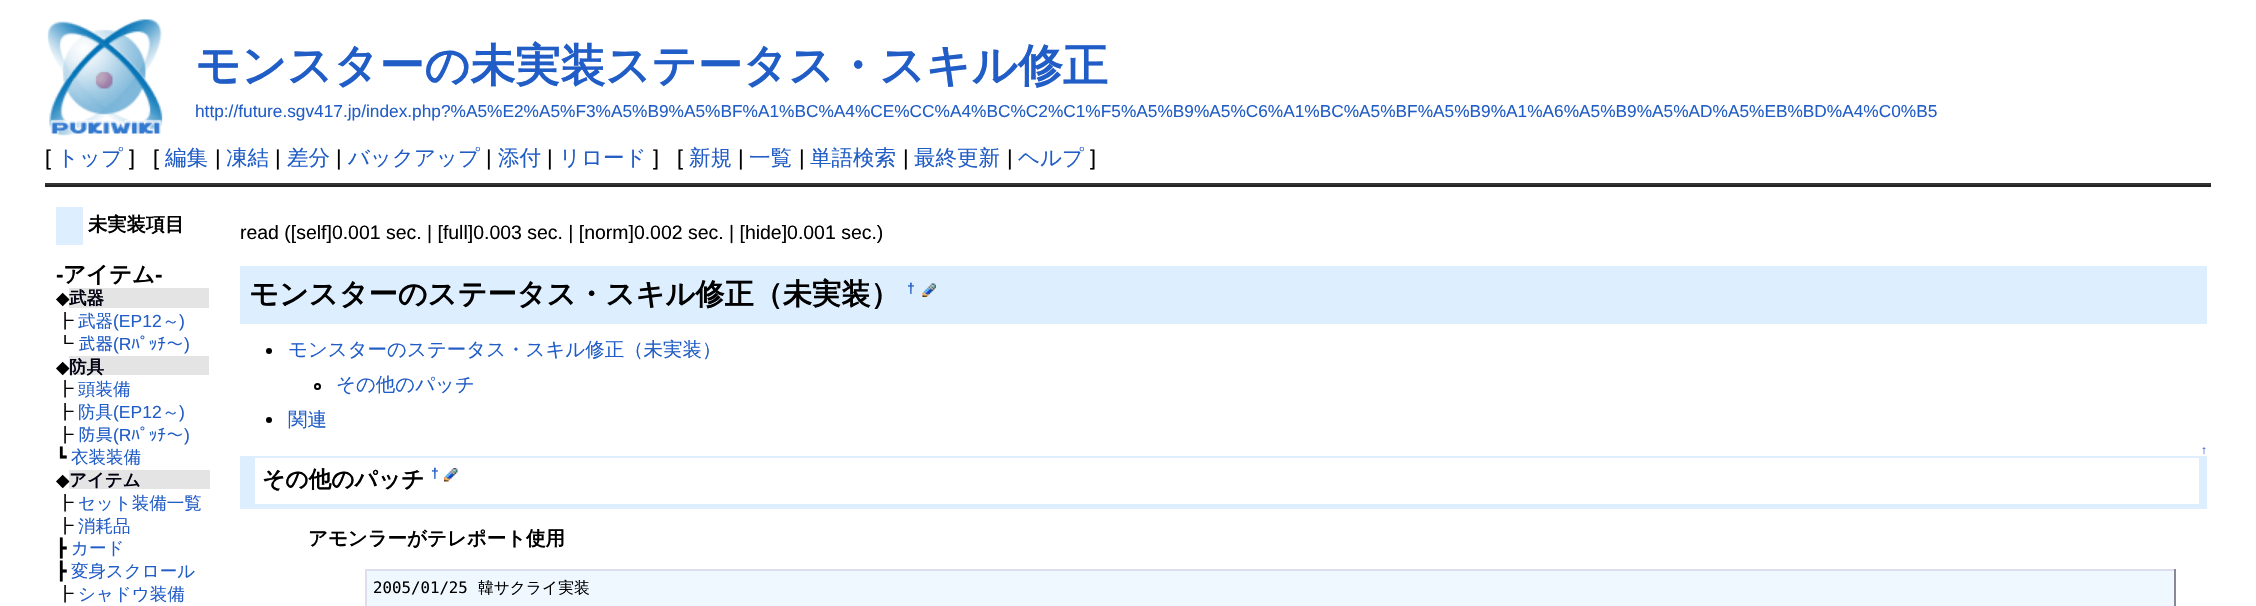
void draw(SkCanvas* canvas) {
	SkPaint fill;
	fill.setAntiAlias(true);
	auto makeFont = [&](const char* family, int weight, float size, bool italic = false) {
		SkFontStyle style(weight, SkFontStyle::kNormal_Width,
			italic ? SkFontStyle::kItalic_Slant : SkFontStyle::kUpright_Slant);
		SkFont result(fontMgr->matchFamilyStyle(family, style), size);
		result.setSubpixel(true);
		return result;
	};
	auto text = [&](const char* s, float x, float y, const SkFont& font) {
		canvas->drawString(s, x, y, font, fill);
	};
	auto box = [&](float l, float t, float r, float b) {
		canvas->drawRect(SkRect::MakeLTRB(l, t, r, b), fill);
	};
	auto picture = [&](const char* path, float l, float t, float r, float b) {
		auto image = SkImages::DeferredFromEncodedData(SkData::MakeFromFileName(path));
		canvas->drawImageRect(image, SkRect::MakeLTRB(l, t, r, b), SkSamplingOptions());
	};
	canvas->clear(0xFFFFFFFF);
	picture("image0.png", 47, 19, 163, 136);
	fill.setColor(0xFF333333);
	box(45, 183, 2211, 185);
	fill.setColor(0xFF222222);
	box(45, 185, 2211, 187);
	fill.setColor(0xFFDDEEFF);
	box(56, 207, 83, 245);
	fill.setColor(0xFFE4E4E4);
	box(69, 288, 209, 308);
	box(69, 356, 209, 375);
	box(69, 470, 210, 489);
	fill.setColor(0xFFDDEEFF);
	box(240, 266, 2207, 324);
	picture("image1.png", 922, 283, 936, 297);
	fill.setColor(0xFF000000);
	canvas->drawCircle(269, 351, 3, fill);
	fill.setStyle(SkPaint::kStroke_Style);
	fill.setStrokeWidth(2);
	canvas->drawCircle(317.5f, 386.5f, 2.5f, fill);
	fill.setStyle(SkPaint::kFill_Style);
	canvas->drawCircle(269, 420, 3, fill);
	fill.setColor(0xFFDDEEFF);
	box(255, 456, 2207, 458);
	box(2199, 456, 2207, 509);
	box(255, 504, 2207, 509);
	box(240, 456, 255, 509);
	picture("image2.png", 444, 468, 458, 482);
	fill.setColor(0xFFF0F8FF);
	box(367, 571, 2174, 606);
	fill.setColor(0xFFDDDDEE);
	box(365, 569, 2175, 571);
	fill.setColor(0xFF888899);
	box(2174, 569, 2176, 606);
	fill.setColor(0xFFDDDDEE);
	box(365, 569, 367, 606);
	auto font1 = makeFont("WenQuanYi Zen Hei", 700, 45);
	fill.setColor(0xFF215DC6);
	text("モンスターの未実装ステータス・スキル修正", 195, 81, font1);
	auto font2 = makeFont("Liberation Sans", 400, 17.28f);
	text("http://future.sgv417.jp/index.php?%A5%E2%A5%F3%A5%B9%A5%BF%A1%BC%A4%CE%CC%A4%BC%C2%C1%F5%A5%B9%A5%C6%A1%BC%A5%BF%A5%B9%A1%A6%A5%B9%A5%AD%A5%EB%BD%A4%C0%B5", 195, 117, font2);
	auto font3 = makeFont("Liberation Sans", 400, 21.5f);
	fill.setColor(0xFF000000);
	text("[", 45, 165, font3);
	auto font4 = makeFont("WenQuanYi Zen Hei", 500, 21.5f);
	fill.setColor(0xFF215DC6);
	text("トップ", 57, 165, font4);
	fill.setColor(0xFF000000);
	text("]", 129, 165, font3);
	text("[", 153, 165, font3);
	fill.setColor(0xFF215DC6);
	text("編集", 165, 165, font4);
	fill.setColor(0xFF000000);
	text("|", 215, 165, font3);
	fill.setColor(0xFF215DC6);
	text("凍結", 226, 165, font4);
	fill.setColor(0xFF000000);
	text("|", 275, 165, font3);
	fill.setColor(0xFF215DC6);
	text("差分", 287, 165, font4);
	fill.setColor(0xFF000000);
	text("|", 336, 165, font3);
	fill.setColor(0xFF215DC6);
	text("バックアップ", 348, 165, font4);
	fill.setColor(0xFF000000);
	text("|", 486, 165, font3);
	fill.setColor(0xFF215DC6);
	text("添付", 498, 165, font4);
	fill.setColor(0xFF000000);
	text("|", 547, 165, font3);
	fill.setColor(0xFF215DC6);
	text("リロード", 559, 165, font4);
	fill.setColor(0xFF000000);
	text("]", 653, 165, font3);
	text("[", 677, 165, font3);
	fill.setColor(0xFF215DC6);
	text("新規", 689, 165, font4);
	fill.setColor(0xFF000000);
	text("|", 738, 165, font3);
	fill.setColor(0xFF215DC6);
	text("一覧", 749, 165, font4);
	fill.setColor(0xFF000000);
	text("|", 799, 165, font3);
	fill.setColor(0xFF215DC6);
	text("単語検索", 810, 165, font4);
	fill.setColor(0xFF000000);
	text("|", 903, 165, font3);
	fill.setColor(0xFF215DC6);
	text("最終更新", 914, 165, font4);
	fill.setColor(0xFF000000);
	text("|", 1007, 165, font3);
	fill.setColor(0xFF215DC6);
	text("ヘルプ", 1018, 165, font4);
	fill.setColor(0xFF000000);
	text("]", 1090, 165, font3);
	auto font5 = makeFont("WenQuanYi Zen Hei", 700, 19.25f);
	text("未実装項目", 88, 231, font5);
	auto font6 = makeFont("Liberation Sans", 700, 22.5f);
	text("-", 56, 282, font6);
	auto font7 = makeFont("WenQuanYi Zen Hei", 700, 22.5f);
	text("アイテム", 63, 282, font7);
	text("-", 155, 282, font6);
	auto font8 = makeFont("DejaVu Sans", 400, 17.5f);
	text("◆", 56, 304, font8);
	auto font9 = makeFont("WenQuanYi Zen Hei", 700, 17.5f);
	fill.setColor(0xFF000011);
	text("武器", 69, 304, font9);
	auto font10 = makeFont("WenQuanYi Zen Hei", 500, 17.5f);
	fill.setColor(0xFF000000);
	text("┣", 56, 327, font10);
	fill.setColor(0xFF215DC6);
	text("武器", 78, 327, font10);
	auto font11 = makeFont("Liberation Sans", 400, 17.5f);
	text("(EP12", 113, 327, font11);
	text("～", 162, 327, font10);
	text(")", 179, 327, font11);
	fill.setColor(0xFF000000);
	text("┗", 56, 350, font10);
	auto font12 = makeFont("IPAGothic", 400, 17.5f);
	fill.setColor(0xFF215DC6);
	text("武器", 78, 350, font12);
	text("(R", 113, 350, font11);
	text("ﾊﾟｯﾁ～", 131, 350, font12);
	text(")", 184, 350, font11);
	fill.setColor(0xFF000000);
	text("◆", 56, 373, font8);
	fill.setColor(0xFF000011);
	text("防具", 69, 373, font9);
	fill.setColor(0xFF000000);
	text("┣", 56, 395, font10);
	fill.setColor(0xFF215DC6);
	text("頭装備", 78, 395, font10);
	fill.setColor(0xFF000000);
	text("┣", 56, 418, font10);
	fill.setColor(0xFF215DC6);
	text("防具", 78, 418, font10);
	text("(EP12", 113, 418, font11);
	text("～", 162, 418, font10);
	text(")", 179, 418, font11);
	fill.setColor(0xFF000000);
	text("┣", 56, 441, font10);
	fill.setColor(0xFF215DC6);
	text("防具", 78, 441, font12);
	text("(R", 113, 441, font11);
	text("ﾊﾟｯﾁ～", 131, 441, font12);
	text(")", 184, 441, font11);
	fill.setColor(0xFF000000);
	text("┗", 56, 463, font8);
	fill.setColor(0xFF215DC6);
	text("衣装装備", 71, 463, font10);
	fill.setColor(0xFF000000);
	text("◆", 56, 486, font8);
	fill.setColor(0xFF000011);
	text("アイテム", 69, 486, font9);
	fill.setColor(0xFF000000);
	text("┣", 56, 509, font10);
	fill.setColor(0xFF215DC6);
	text("セット装備一覧", 78, 509, font10);
	fill.setColor(0xFF000000);
	text("┣", 56, 532, font10);
	fill.setColor(0xFF215DC6);
	text("消耗品", 78, 532, font10);
	fill.setColor(0xFF000000);
	text("┣", 56, 554, font8);
	fill.setColor(0xFF215DC6);
	text("カード", 71, 554, font10);
	fill.setColor(0xFF000000);
	text("┣", 56, 577, font8);
	fill.setColor(0xFF215DC6);
	text("変身スクロール", 71, 577, font10);
	fill.setColor(0xFF000000);
	text("┣", 56, 600, font10);
	fill.setColor(0xFF215DC6);
	text("シャドウ装備", 78, 600, font10);
	auto font13 = makeFont("Liberation Sans", 400, 19.45f);
	fill.setColor(0xFF000000);
	text("read ([self]0.001 sec. | [full]0.003 sec. | [norm]0.002 sec. | [hide]0.001 sec.)", 240, 239, font13);
	auto font14 = makeFont("WenQuanYi Zen Hei", 700, 29.2f);
	text("モンスターのステータス・スキル修正（未実装）", 249, 304, font14);
	auto font15 = makeFont("Liberation Sans", 700, 14);
	fill.setColor(0xFF215DC6);
	text("†", 907, 293, font15);
	auto font16 = makeFont("WenQuanYi Zen Hei", 500, 19.45f);
	text("モンスターのステータス・スキル修正（未実装）", 288, 356, font16);
	text("その他のパッチ", 336, 391, font16);
	text("関連", 288, 426, font16);
	auto font17 = makeFont("Liberation Sans", 400, 12);
	text("↑", 2201, 454, font17);
	auto font18 = makeFont("WenQuanYi Zen Hei", 700, 22.75f);
	fill.setColor(0xFF000000);
	text("その他のパッチ", 262, 487, font18);
	fill.setColor(0xFF215DC6);
	text("†", 431, 478, font15);
	auto font19 = makeFont("WenQuanYi Zen Hei", 700, 19.45f);
	fill.setColor(0xFF000000);
	text("アモンラーがテレポート使用", 308, 545, font19);
	auto font20 = makeFont("DejaVu Sans Mono", 400, 15.75f);
	text("2005/01/25", 373, 593, font20);
	auto font21 = makeFont("WenQuanYi Zen Hei", 500, 15.75f);
	text("韓サクライ実装", 478, 593, font21);
}
